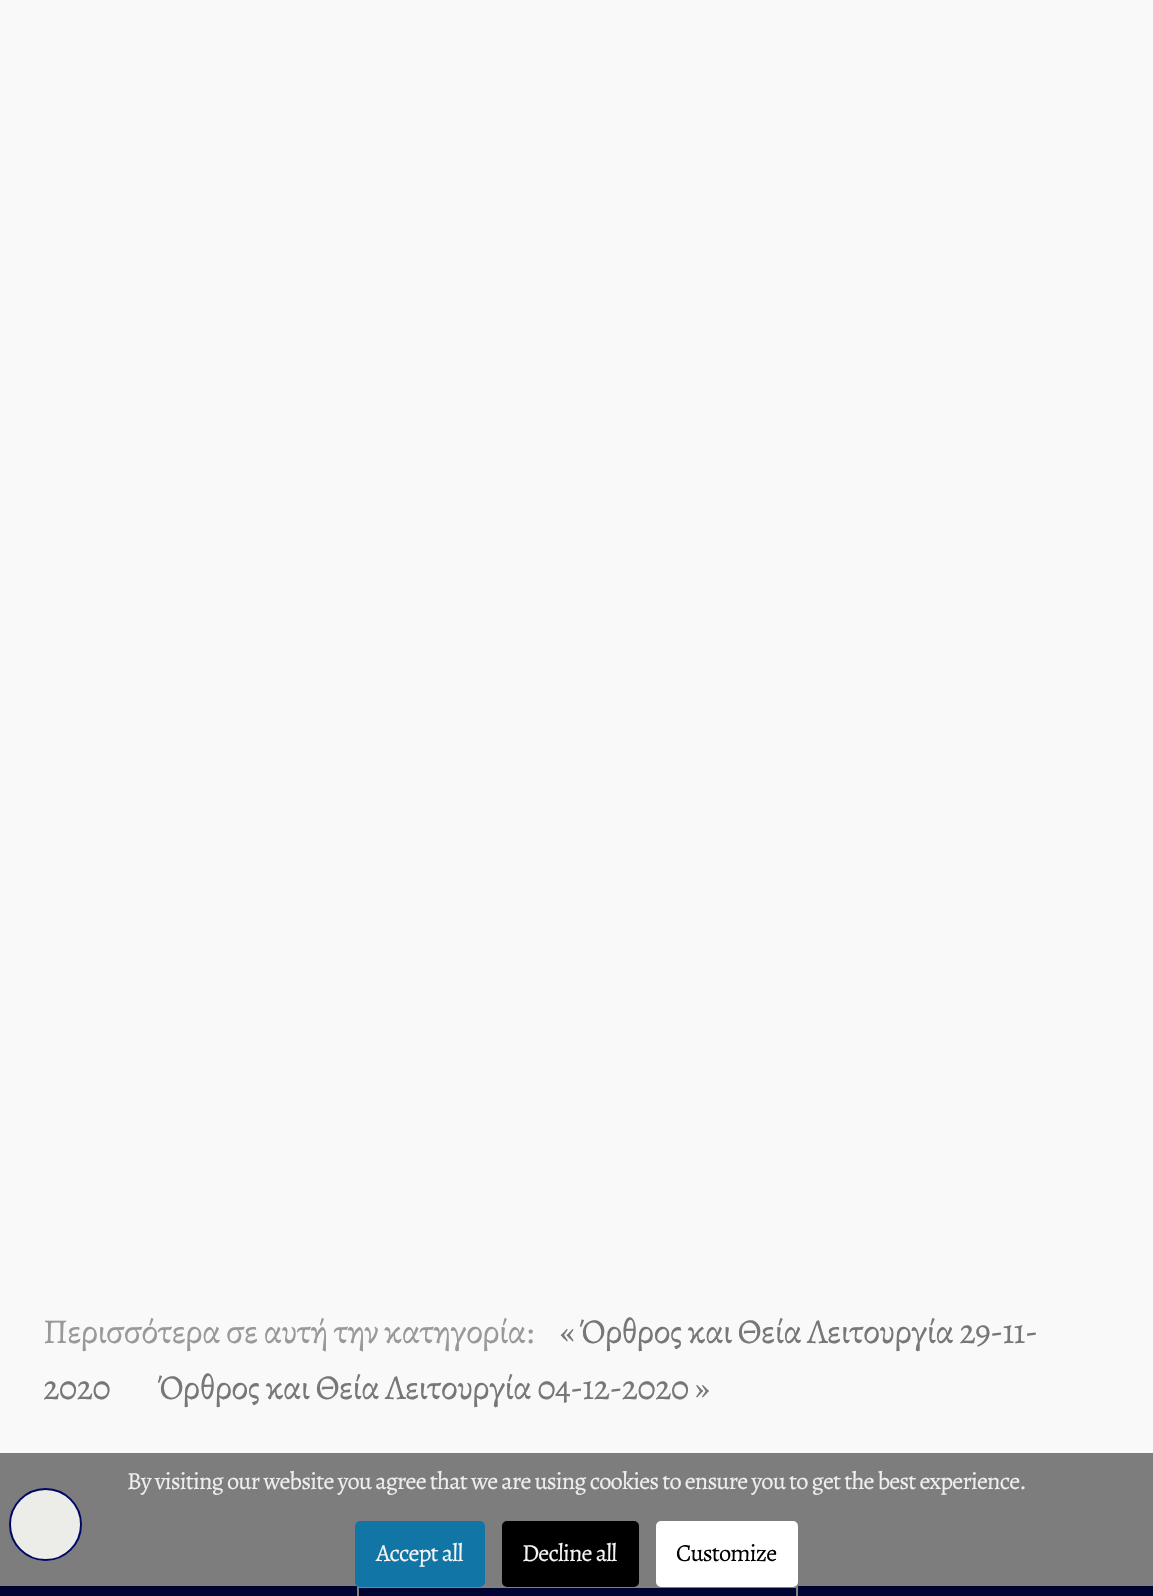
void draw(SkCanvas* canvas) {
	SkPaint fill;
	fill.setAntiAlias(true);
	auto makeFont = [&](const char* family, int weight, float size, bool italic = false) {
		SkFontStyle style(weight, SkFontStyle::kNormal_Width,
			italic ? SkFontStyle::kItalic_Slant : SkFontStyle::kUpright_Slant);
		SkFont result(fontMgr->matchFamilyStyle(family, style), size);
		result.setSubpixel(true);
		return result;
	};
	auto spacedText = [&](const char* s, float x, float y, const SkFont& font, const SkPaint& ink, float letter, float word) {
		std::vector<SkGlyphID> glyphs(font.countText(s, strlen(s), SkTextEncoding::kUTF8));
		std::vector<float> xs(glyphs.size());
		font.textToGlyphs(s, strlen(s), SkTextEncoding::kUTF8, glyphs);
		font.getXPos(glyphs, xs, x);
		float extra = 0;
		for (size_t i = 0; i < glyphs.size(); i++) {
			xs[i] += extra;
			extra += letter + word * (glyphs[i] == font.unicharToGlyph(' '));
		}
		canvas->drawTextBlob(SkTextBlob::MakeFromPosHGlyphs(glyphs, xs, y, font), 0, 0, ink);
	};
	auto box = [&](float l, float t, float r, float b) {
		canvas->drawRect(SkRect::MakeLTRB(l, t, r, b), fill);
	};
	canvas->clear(0xFFF9F9F9);
	fill.setColor(0xFF7D7D7D);
	box(0, 1453, 1153, 1586);
	fill.setColor(0xFFECEDE8);
	canvas->drawCircle(45.5f, 1524.5f, 35.5f, fill);
	fill.setStyle(SkPaint::kStroke_Style);
	fill.setStrokeWidth(2);
	fill.setColor(0xFF000865);
	canvas->drawCircle(45.5f, 1524.5f, 35.5f, fill);
	fill.setStyle(SkPaint::kFill_Style);
	fill.setColor(0xFF000433);
	box(0, 1586, 1153, 1596);
	fill.setStyle(SkPaint::kStroke_Style);
	fill.setColor(0xFF808080);
	canvas->drawRect(SkRect::MakeLTRB(358, 1587, 797, 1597), fill);
	fill.setStyle(SkPaint::kFill_Style);
	fill.setColor(0xFF1176A6);
	canvas->drawRoundRect(SkRect::MakeLTRB(357, 1523, 483, 1585), 3, 3, fill);
	fill.setStyle(SkPaint::kStroke_Style);
	fill.setStrokeWidth(4);
	canvas->drawRoundRect(SkRect::MakeLTRB(357, 1523, 483, 1585), 3, 3, fill);
	fill.setStyle(SkPaint::kFill_Style);
	fill.setColor(0xFF000000);
	canvas->drawRoundRect(SkRect::MakeLTRB(504, 1523, 637, 1585), 3, 3, fill);
	fill.setStyle(SkPaint::kStroke_Style);
	canvas->drawRoundRect(SkRect::MakeLTRB(504, 1523, 637, 1585), 3, 3, fill);
	fill.setStyle(SkPaint::kFill_Style);
	fill.setColor(0xFFFFFFFF);
	canvas->drawRoundRect(SkRect::MakeLTRB(658, 1523, 796, 1585), 3, 3, fill);
	fill.setStyle(SkPaint::kStroke_Style);
	canvas->drawRoundRect(SkRect::MakeLTRB(658, 1523, 796, 1585), 3, 3, fill);
	auto font1 = makeFont("Alegreya", 400, 35);
	fill.setStyle(SkPaint::kFill_Style);
	fill.setColor(0xFF999999);
	spacedText("Περισσότερα σε αυτή την κατηγορία:", 43, 1343, font1, fill, -0.88f, 0);
	fill.setColor(0xFF777777);
	spacedText("« Όρθρος και Θεία Λειτουργία 29-11-", 560, 1343, font1, fill, -0.88f, 0);
	spacedText("2020", 43, 1399, font1, fill, -0.88f, 0);
	spacedText("Όρθρος και Θεία Λειτουργία 04-12-2020 »", 158, 1399, font1, fill, -0.88f, 0);
	auto font2 = makeFont("Alegreya", 400, 24.5f);
	fill.setColor(0xFFEEEEEE);
	spacedText("By visiting our website you agree that we are using cookies to ensure you to get the best experience.", 127, 1489, font2, fill, -0.88f, 0);
	fill.setColor(0xFFF5F5F5);
	spacedText("Accept all", 376, 1561, font2, fill, -0.88f, 0);
	spacedText("Decline all", 522, 1561, font2, fill, -0.88f, 0);
	fill.setColor(0xFF000000);
	spacedText("Customize", 676, 1561, font2, fill, -0.88f, 0);
}
